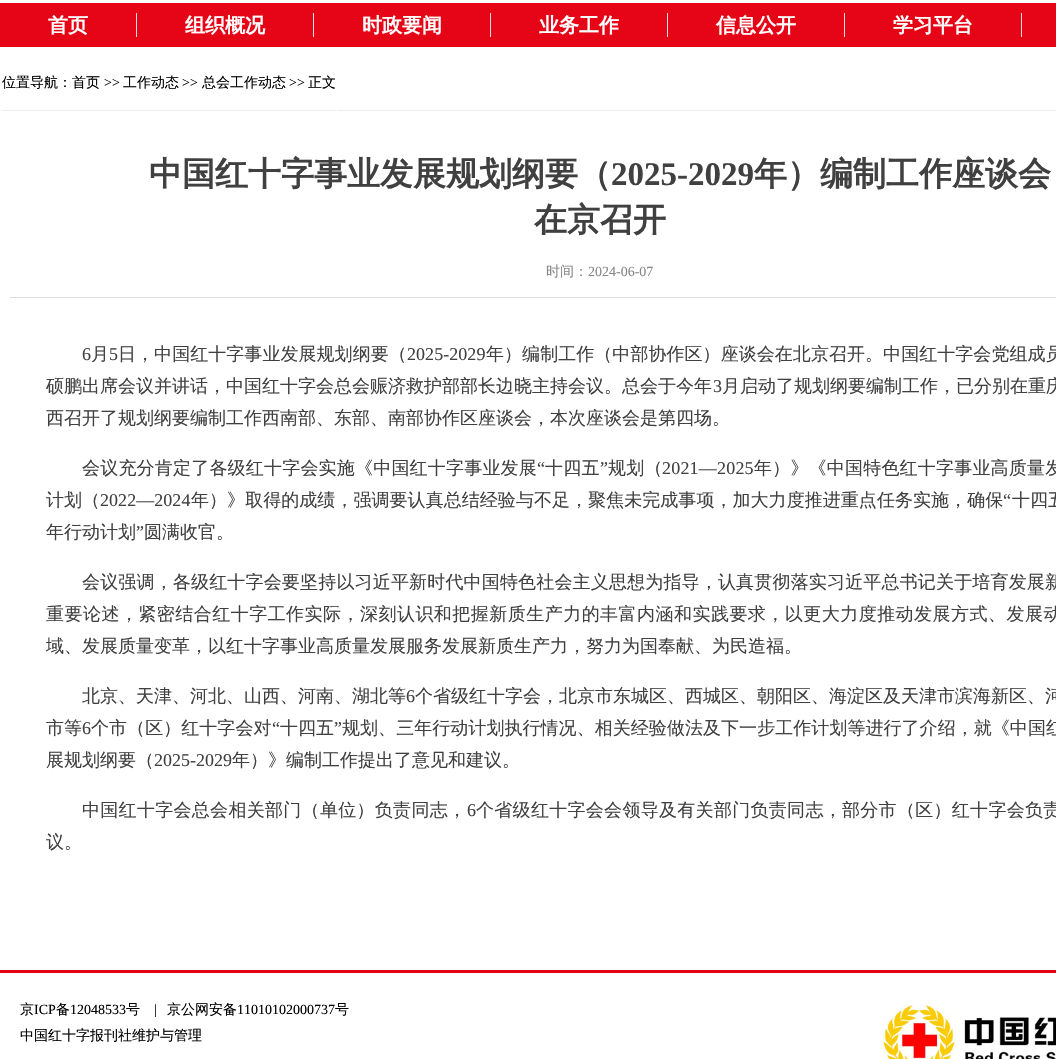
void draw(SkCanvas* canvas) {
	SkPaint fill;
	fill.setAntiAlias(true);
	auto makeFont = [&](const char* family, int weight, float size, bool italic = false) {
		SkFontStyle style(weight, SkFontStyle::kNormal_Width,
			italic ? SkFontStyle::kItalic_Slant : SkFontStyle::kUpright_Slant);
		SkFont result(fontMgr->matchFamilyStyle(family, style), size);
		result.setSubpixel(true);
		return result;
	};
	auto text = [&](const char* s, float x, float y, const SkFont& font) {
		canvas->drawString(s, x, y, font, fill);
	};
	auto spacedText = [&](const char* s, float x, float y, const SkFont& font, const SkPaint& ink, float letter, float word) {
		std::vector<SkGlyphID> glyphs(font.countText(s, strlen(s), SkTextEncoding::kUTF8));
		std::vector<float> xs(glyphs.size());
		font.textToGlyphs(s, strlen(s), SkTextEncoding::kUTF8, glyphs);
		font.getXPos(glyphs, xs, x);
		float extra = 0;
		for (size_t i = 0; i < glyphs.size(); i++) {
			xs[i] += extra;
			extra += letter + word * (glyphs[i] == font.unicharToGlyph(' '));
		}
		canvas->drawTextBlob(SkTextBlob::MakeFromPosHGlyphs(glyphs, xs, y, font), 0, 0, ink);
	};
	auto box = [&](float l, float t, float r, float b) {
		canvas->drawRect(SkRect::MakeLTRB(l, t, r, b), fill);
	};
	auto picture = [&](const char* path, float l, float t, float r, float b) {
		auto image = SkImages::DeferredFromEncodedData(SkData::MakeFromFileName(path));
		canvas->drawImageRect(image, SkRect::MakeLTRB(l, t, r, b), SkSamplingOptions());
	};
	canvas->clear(0xFFFFFFFF);
	fill.setColor(0xFFE50516);
	box(0, 3, 1056, 47);
	fill.setColor(0xFFE0E0E0);
	box(136, 13, 137, 37);
	box(313, 13, 314, 37);
	box(490, 13, 491, 37);
	box(667, 13, 668, 37);
	box(844, 13, 845, 37);
	box(1021, 13, 1022, 37);
	fill.setColor(0xFFEEEEEE);
	box(0, 110, 1056, 111);
	fill.setColor(0xFFFFFFFF);
	box(0, 110, 1, 111);
	fill.setStyle(SkPaint::kStroke_Style);
	fill.setStrokeWidth(1);
	canvas->drawRect(SkRect::MakeLTRB(1.5f, 52.5f, 336.5f, 113.5f), fill);
	fill.setStyle(SkPaint::kFill_Style);
	fill.setColor(0xFFDDDDDD);
	box(10, 297, 1056, 298);
	fill.setColor(0xFFE40011);
	box(0, 970, 1056, 973);
	picture("image0.png", 881, 1005, 1056, 1059);
	auto font1 = makeFont("WenQuanYi Zen Hei", 700, 20);
	fill.setColor(0xFFFFFFFF);
	text("首页", 48, 32, font1);
	text("组织概况", 185, 32, font1);
	text("时政要闻", 362, 32, font1);
	text("业务工作", 539, 32, font1);
	text("信息公开", 716, 32, font1);
	text("学习平台", 893, 32, font1);
	auto font2 = makeFont("WenQuanYi Zen Hei", 500, 14);
	fill.setColor(0xFF000000);
	text("位置导航：首页", 2, 87, font2);
	auto font3 = makeFont("Liberation Serif", 400, 14);
	text(">>", 104, 87, font3);
	text("工作动态", 123, 87, font2);
	text(">>", 182, 87, font3);
	text("总会工作动态", 202, 87, font2);
	text(">>", 289, 87, font3);
	text("正文", 308, 87, font2);
	auto font4 = makeFont("WenQuanYi Zen Hei", 700, 33);
	fill.setColor(0xFF404040);
	text("中国红十字事业发展规划纲要（", 149, 185, font4);
	auto font5 = makeFont("Liberation Serif", 700, 33);
	text("2025-2029", 611, 185, font5);
	text("年）编制工作座谈会", 754, 185, font4);
	text("在京召开", 534, 231, font4);
	fill.setColor(0xFF888888);
	text("时间：", 546, 276, font2);
	text("2024-06-07", 588, 276, font3);
	auto font6 = makeFont("Liberation Serif", 400, 18);
	fill.setColor(0xFF404040);
	spacedText("6", 82, 360, font6, fill, 0.05f, 0);
	auto font7 = makeFont("WenQuanYi Zen Hei", 500, 18);
	spacedText("月", 91, 360, font7, fill, 0.05f, 0);
	spacedText("5", 109, 360, font6, fill, 0.05f, 0);
	spacedText("日，中国红十字事业发展规划纲要（", 118, 360, font7, fill, 0.05f, 0);
	spacedText("2025-2029", 407, 360, font6, fill, 0.05f, 0);
	spacedText("年）编制工作（中部协作区）座谈会在北京召开。中国红十字会党组成员", 486, 360, font7, fill, 0.05f, 0);
	text("硕鹏出席会议并讲话，中国红十字会总会赈济救护部部长边晓主持会议。总会于今年", 46, 392, font7);
	text("3", 713, 392, font6);
	text("月启动了规划纲要编制工作，已分别在重庆", 722, 392, font7);
	text("西召开了规划纲要编制工作西南部、东部、南部协作区座谈会，本次座谈会是第四场。", 46, 424, font7);
	spacedText("会议充分肯定了各级红十字会实施《中国红十字事业发展", 82, 474, font7, fill, 0.2f, 0);
	spacedText("“", 537, 474, font6, fill, 0.2f, 0);
	spacedText("十四五", 545, 474, font7, fill, 0.2f, 0);
	spacedText("”", 600, 474, font6, fill, 0.2f, 0);
	spacedText("规划（", 608, 474, font7, fill, 0.2f, 0);
	spacedText("2021—2025", 662, 474, font6, fill, 0.2f, 0);
	spacedText("年）》《中国特色红十字事业高质量发", 754, 474, font7, fill, 0.2f, 0);
	spacedText("计划（", 46, 506, font7, fill, 0.05f, 0);
	spacedText("2022—2024", 100, 506, font6, fill, 0.05f, 0);
	spacedText("年）》取得的成绩，强调要认真总结经验与不足，聚焦未完成事项，加大力度推进重点任务实施，确保", 191, 506, font7, fill, 0.05f, 0);
	spacedText("“", 1003, 506, font6, fill, 0.05f, 0);
	spacedText("十四五", 1012, 506, font7, fill, 0.05f, 0);
	text("年行动计划", 46, 538, font7);
	text("”", 136, 538, font6);
	text("圆满收官。", 144, 538, font7);
	spacedText("会议强调，各级红十字会要坚持以习近平新时代中国特色社会主义思想为指导，认真贯彻落实习近平总书记关于培育发展新", 82, 588, font7, fill, 0.17f, 0);
	spacedText("重要论述，紧密结合红十字工作实际，深刻认识和把握新质生产力的丰富内涵和实践要求，以更大力度推动发展方式、发展动", 46, 620, font7, fill, 0.47f, 0);
	text("域、发展质量变革，以红十字事业高质量发展服务发展新质生产力，努力为国奉献、为民造福。", 46, 652, font7);
	text("北京、天津、河北、山西、河南、湖北等", 82, 702, font7);
	text("6", 406, 702, font6);
	text("个省级红十字会，北京市东城区、西城区、朝阳区、海淀区及天津市滨海新区、河", 415, 702, font7);
	spacedText("市等", 46, 734, font7, fill, 0.05f, 0);
	spacedText("6", 82, 734, font6, fill, 0.05f, 0);
	spacedText("个市（区）红十字会对", 91, 734, font7, fill, 0.05f, 0);
	spacedText("“", 272, 734, font6, fill, 0.05f, 0);
	spacedText("十四五", 280, 734, font7, fill, 0.05f, 0);
	spacedText("”", 334, 734, font6, fill, 0.05f, 0);
	spacedText("规划、三年行动计划执行情况、相关经验做法及下一步工作计划等进行了介绍，就《中国红", 342, 734, font7, fill, 0.05f, 0);
	text("展规划纲要（", 46, 766, font7);
	text("2025-2029", 154, 766, font6);
	text("年）》编制工作提出了意见和建议。", 232, 766, font7);
	spacedText("中国红十字会总会相关部门（单位）负责同志，", 82, 816, font7, fill, 0.3f, 0);
	spacedText("6", 467, 816, font6, fill, 0.3f, 0);
	spacedText("个省级红十字会会领导及有关部门负责同志，部分市（区）红十字会负责", 476, 816, font7, fill, 0.3f, 0);
	text("议。", 46, 848, font7);
	fill.setColor(0xFF000000);
	text("京", 20, 1014, font2);
	text("ICP", 34, 1014, font3);
	text("备", 56, 1014, font2);
	text("12048533", 70, 1014, font3);
	text("号", 126, 1014, font2);
	text("|", 154, 1014, font3);
	text("京公网安备", 167, 1014, font2);
	text("11010102000737", 237, 1014, font3);
	text("号", 335, 1014, font2);
	text("中国红十字报刊社维护与管理", 20, 1040, font2);
}
